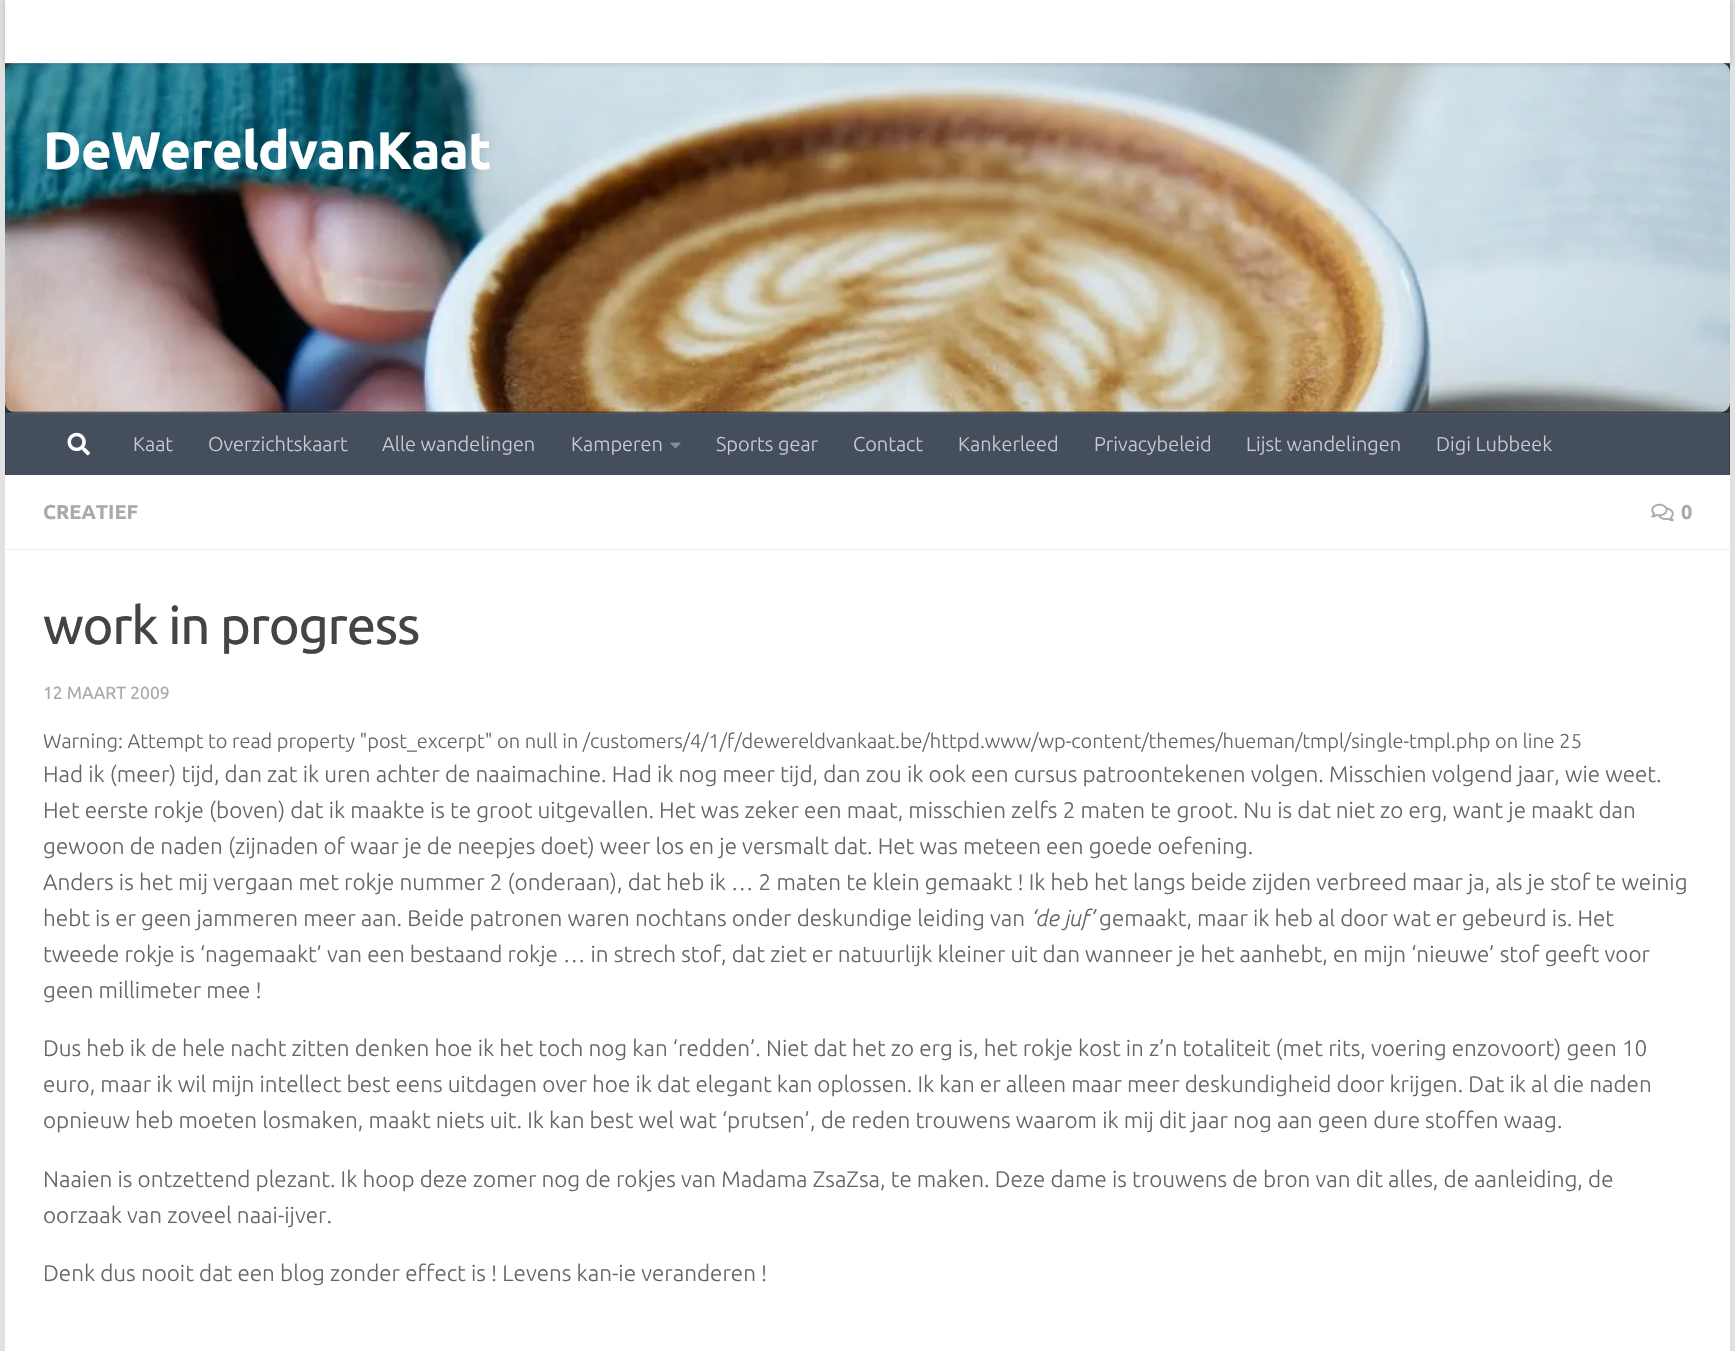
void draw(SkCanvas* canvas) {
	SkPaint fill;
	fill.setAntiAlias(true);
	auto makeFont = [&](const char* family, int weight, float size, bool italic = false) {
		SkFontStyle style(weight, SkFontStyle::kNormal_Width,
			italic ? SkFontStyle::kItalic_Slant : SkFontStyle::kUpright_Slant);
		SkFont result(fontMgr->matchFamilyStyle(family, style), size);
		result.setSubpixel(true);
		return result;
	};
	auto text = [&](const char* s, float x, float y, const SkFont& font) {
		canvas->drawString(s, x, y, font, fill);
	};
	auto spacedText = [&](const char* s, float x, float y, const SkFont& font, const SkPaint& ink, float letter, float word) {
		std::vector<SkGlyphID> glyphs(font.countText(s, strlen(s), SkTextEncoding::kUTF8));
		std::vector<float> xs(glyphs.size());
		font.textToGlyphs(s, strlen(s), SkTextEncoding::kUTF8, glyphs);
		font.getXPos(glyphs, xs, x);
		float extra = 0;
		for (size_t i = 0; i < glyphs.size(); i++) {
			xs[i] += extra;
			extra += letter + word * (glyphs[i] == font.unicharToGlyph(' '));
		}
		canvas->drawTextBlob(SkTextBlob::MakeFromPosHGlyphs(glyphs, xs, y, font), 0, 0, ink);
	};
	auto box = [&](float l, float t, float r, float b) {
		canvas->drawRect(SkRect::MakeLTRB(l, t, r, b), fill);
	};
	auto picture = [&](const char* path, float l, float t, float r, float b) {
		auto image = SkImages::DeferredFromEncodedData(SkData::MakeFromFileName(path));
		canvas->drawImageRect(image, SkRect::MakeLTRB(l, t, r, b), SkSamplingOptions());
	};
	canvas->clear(0xFFFFFFFF);
	fill.setColor(0xFFE1E1E1);
	canvas->drawPath(SkPathBuilder().moveTo(-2, 0).lineTo(-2, 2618).lineTo(1723, 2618).lineTo(5, 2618).lineTo(5, 0).close().detach(), fill);
	canvas->drawPath(SkPathBuilder().moveTo(13, 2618).lineTo(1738, 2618).lineTo(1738, 0).lineTo(1730, 0).lineTo(1730, 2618).close().detach(), fill);
	fill.setColor(0xFF33363B);
	box(5, 63, 1730, 413);
	picture("image0.png", 5, 63, 1730, 413);
	fill.setColor(0x26FFFFFF);
	box(5, 63, 1730, 64);
	fill.setColor(0x33000000);
	fill.setMaskFilter(SkMaskFilter::MakeBlur(kNormal_SkBlurStyle, 3));
	canvas->drawRect(SkRect::MakeLTRB(5, 0, 1730, 63), fill);
	fill.setMaskFilter(nullptr);
	fill.setColor(0xFFFFFFFF);
	box(5, 0, 1730, 63);
	fill.setColor(0x33000000);
	box(5, 411, 1730, 412);
	fill.setColor(0xFF454E5C);
	box(6, 414, 1729, 475);
	fill.setColor(0xFF4E5764);
	box(5, 413, 1730, 414);
	fill.setColor(0xFF373E4A);
	box(1729, 413, 1730, 475);
	fill.setColor(0xFF414853);
	box(1729, 413, 1730, 414);
	fill.setColor(0xFF373E4A);
	box(5, 413, 6, 475);
	fill.setColor(0xFF414853);
	box(5, 413, 6, 414);
	picture("image1.png", 67, 432, 90, 456);
	picture("image2.png", 670, 442, 681, 449);
	fill.setColor(0xFFEEEEEE);
	box(5, 549, 1730, 550);
	picture("image3.png", 1651, 503, 1674, 522);
	auto font1 = makeFont("Ubuntu", 700, 52.5f);
	fill.setColor(0xFFFFFFFF);
	spacedText("DeWereldvanKaat", 43, 169, font1, fill, -0.6f, 0);
	auto font2 = makeFont("Ubuntu", 300, 20);
	fill.setColor(0xFFC7CACE);
	text("Kaat", 133, 451, font2);
	text("Overzichtskaart", 208, 451, font2);
	text("Alle wandelingen", 382, 451, font2);
	text("Kamperen", 571, 451, font2);
	text("Sports gear", 716, 451, font2);
	text("Contact", 853, 451, font2);
	text("Kankerleed", 958, 451, font2);
	text("Privacybeleid", 1094, 451, font2);
	text("Lijst wandelingen", 1246, 451, font2);
	text("Digi Lubbeek", 1436, 451, font2);
	auto font3 = makeFont("Ubuntu", 700, 20);
	fill.setColor(0xFFAAAAAA);
	text("CREATIEF", 43, 519, font3);
	text("0", 1681, 519, font3);
	auto font4 = makeFont("Ubuntu", 400, 52.5f);
	fill.setColor(0xFF444444);
	spacedText("work in progress", 43, 644, font4, fill, -1.25f, 0);
	auto font5 = makeFont("Ubuntu", 400, 17.5f);
	fill.setColor(0xFFAAAAAA);
	text("12 MAART 2009", 43, 699, font5);
	fill.setColor(0xFF666666);
	text("Warning: Attempt to read property \"post_excerpt\" on null in /customers/4/1/f/dewereldvankaat.be/httpd.www/wp-content/themes/hueman/tmpl/single-tmpl.php on line 25", 43, 748, font2);
	auto font6 = makeFont("Ubuntu", 300, 22.5f);
	text("Had ik (meer) tijd, dan zat ik uren achter de naaimachine. Had ik nog meer tijd, dan zou ik ook een cursus patroontekenen volgen. Misschien volgend jaar, wie weet.", 43, 782, font6);
	text("Het eerste rokje (boven) dat ik maakte is te groot uitgevallen. Het was zeker een maat, misschien zelfs 2 maten te groot. Nu is dat niet zo erg, want je maakt dan", 43, 818, font6);
	text("gewoon de naden (zijnaden of waar je de neepjes doet) weer los en je versmalt dat. Het was meteen een goede oefening.", 43, 854, font6);
	text("Anders is het mij vergaan met rokje nummer 2 (onderaan), dat heb ik … 2 maten te klein gemaakt ! Ik heb het langs beide zijden verbreed maar ja, als je stof te weinig", 43, 890, font6);
	text("hebt is er geen jammeren meer aan. Beide patronen waren nochtans onder deskundige leiding van", 43, 926, font6);
	auto font7 = makeFont("Ubuntu", 300, 22.5f, true);
	text("‘de juf’", 1030, 926, font7);
	text("gemaakt, maar ik heb al door wat er gebeurd is. Het", 1099, 926, font6);
	text("tweede rokje is ‘nagemaakt’ van een bestaand rokje … in strech stof, dat ziet er natuurlijk kleiner uit dan wanneer je het aanhebt, en mijn ‘nieuwe’ stof geeft voor", 43, 962, font6);
	text("geen millimeter mee !", 43, 998, font6);
	text("Dus heb ik de hele nacht zitten denken hoe ik het toch nog kan ‘redden’. Niet dat het zo erg is, het rokje kost in z’n totaliteit (met rits, voering enzovoort) geen 10", 43, 1056, font6);
	text("euro, maar ik wil mijn intellect best eens uitdagen over hoe ik dat elegant kan oplossen. Ik kan er alleen maar meer deskundigheid door krijgen. Dat ik al die naden", 43, 1092, font6);
	text("opnieuw heb moeten losmaken, maakt niets uit. Ik kan best wel wat ‘prutsen’, de reden trouwens waarom ik mij dit jaar nog aan geen dure stoffen waag.", 43, 1128, font6);
	text("Naaien is ontzettend plezant. Ik hoop deze zomer nog de rokjes van Madama ZsaZsa, te maken. Deze dame is trouwens de bron van dit alles, de aanleiding, de", 43, 1187, font6);
	text("oorzaak van zoveel naai-ijver.", 43, 1223, font6);
	text("Denk dus nooit dat een blog zonder effect is ! Levens kan-ie veranderen !", 43, 1281, font6);
}
